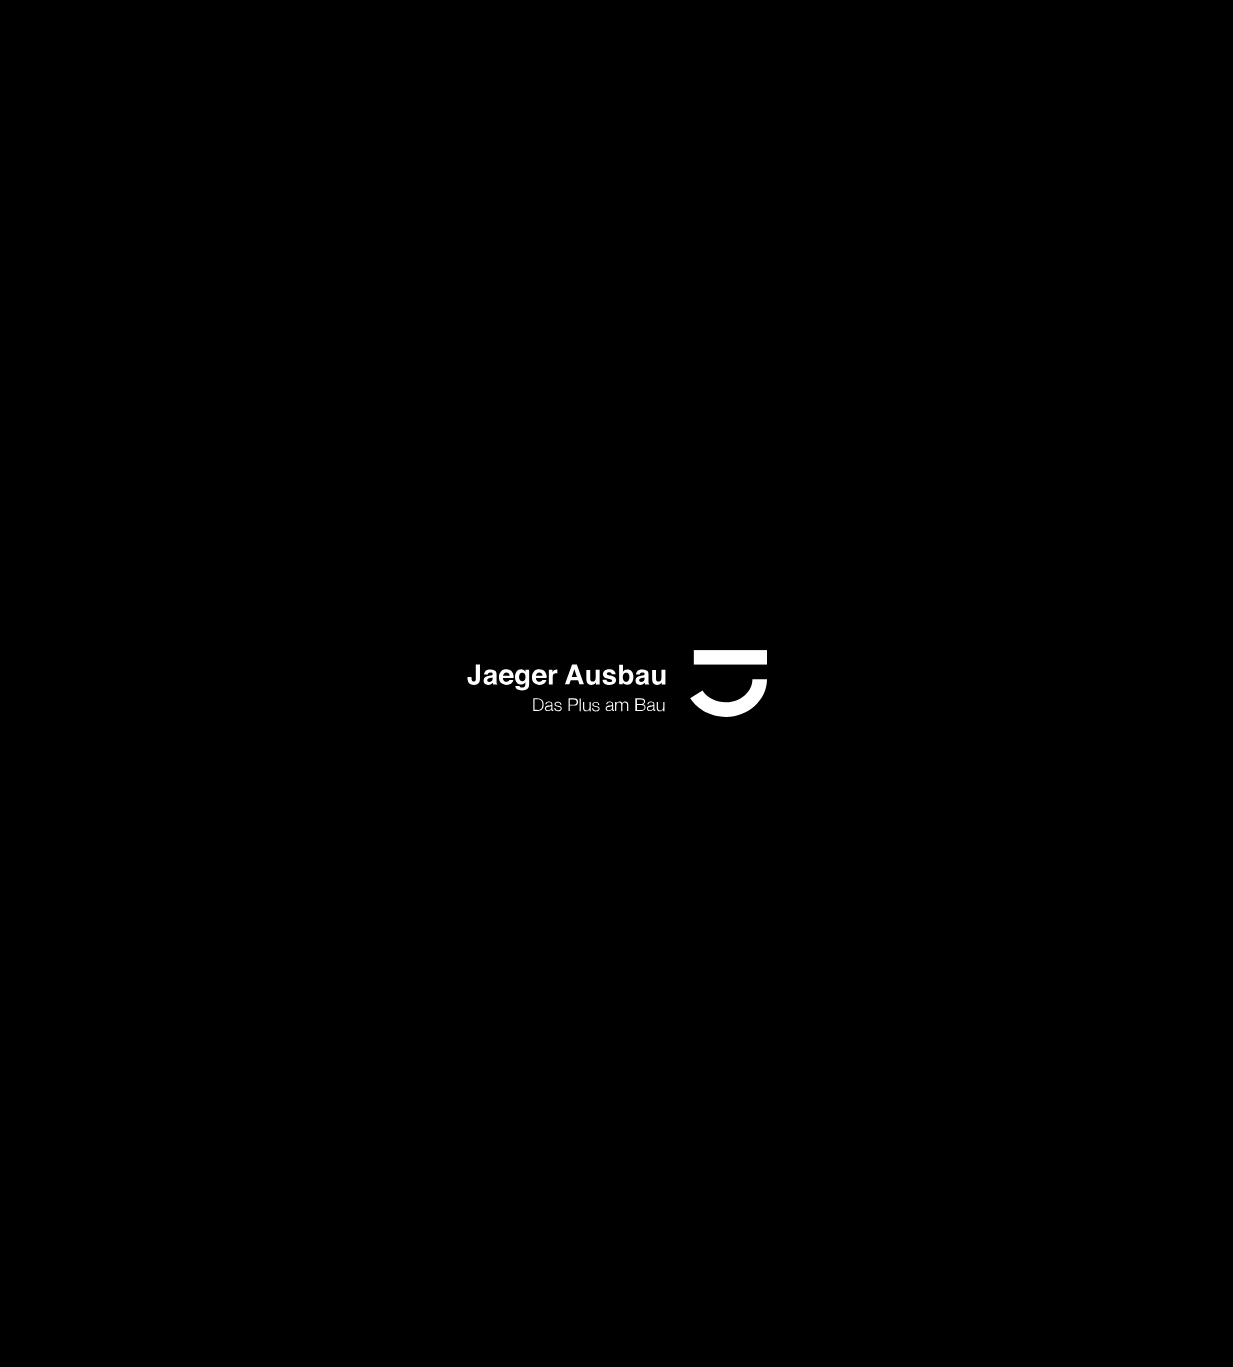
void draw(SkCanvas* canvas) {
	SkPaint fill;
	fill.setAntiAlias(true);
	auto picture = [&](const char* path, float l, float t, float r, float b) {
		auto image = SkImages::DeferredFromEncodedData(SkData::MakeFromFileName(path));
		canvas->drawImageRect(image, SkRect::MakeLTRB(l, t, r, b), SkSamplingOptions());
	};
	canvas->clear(0xFF000000);
	picture("image0.png", 467, 650, 767, 717);
}
